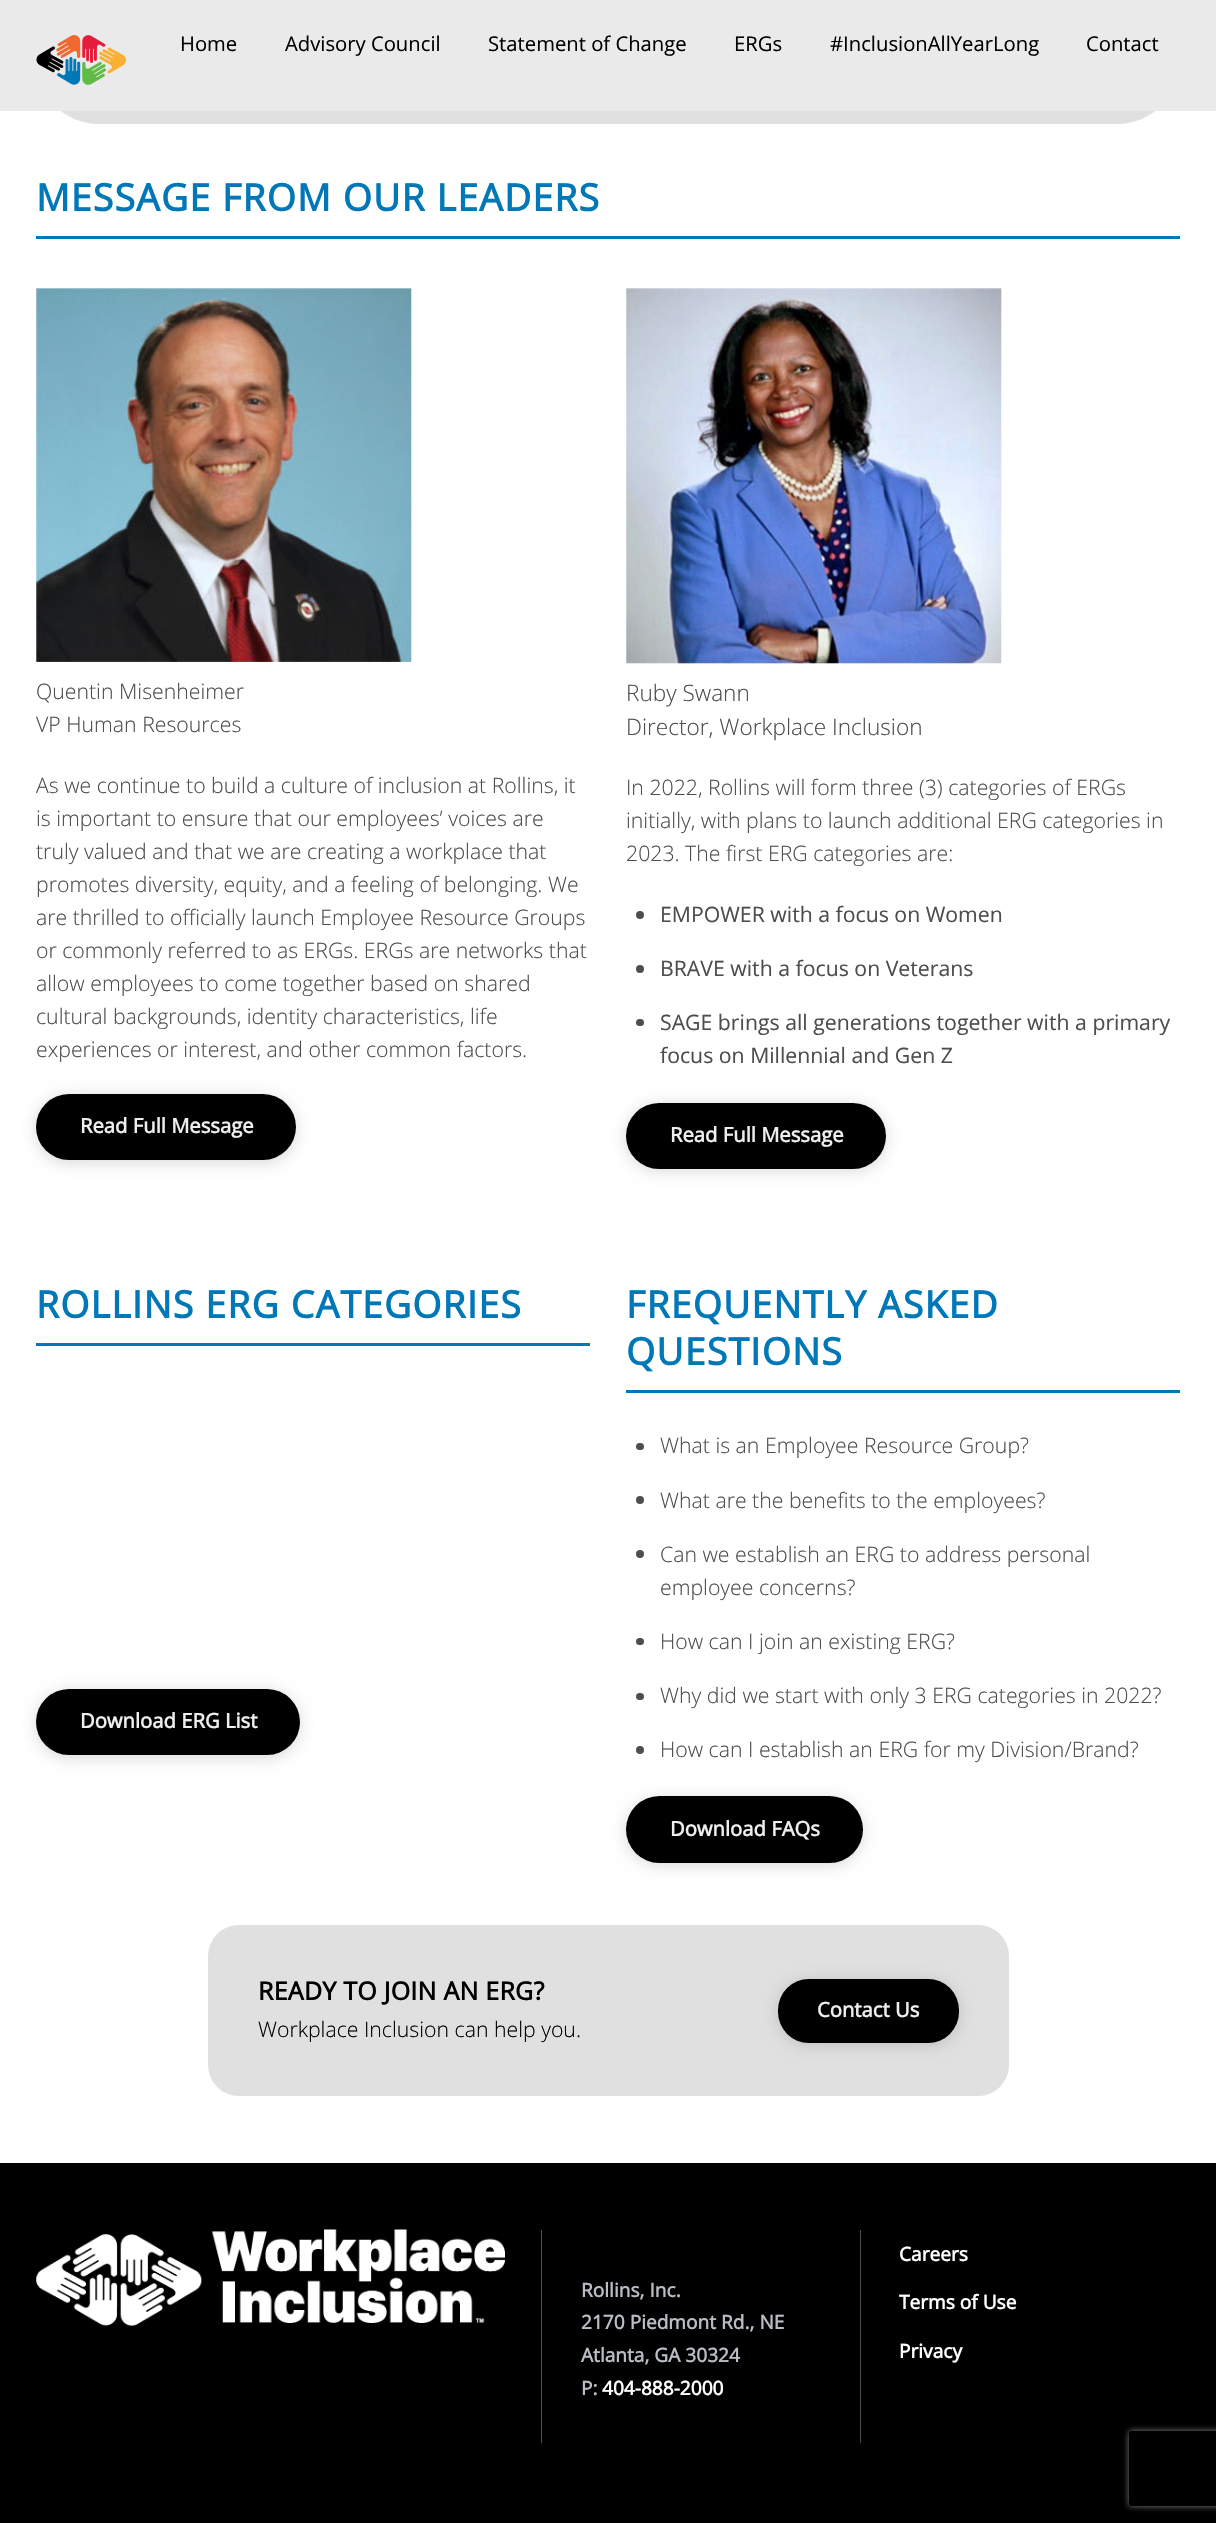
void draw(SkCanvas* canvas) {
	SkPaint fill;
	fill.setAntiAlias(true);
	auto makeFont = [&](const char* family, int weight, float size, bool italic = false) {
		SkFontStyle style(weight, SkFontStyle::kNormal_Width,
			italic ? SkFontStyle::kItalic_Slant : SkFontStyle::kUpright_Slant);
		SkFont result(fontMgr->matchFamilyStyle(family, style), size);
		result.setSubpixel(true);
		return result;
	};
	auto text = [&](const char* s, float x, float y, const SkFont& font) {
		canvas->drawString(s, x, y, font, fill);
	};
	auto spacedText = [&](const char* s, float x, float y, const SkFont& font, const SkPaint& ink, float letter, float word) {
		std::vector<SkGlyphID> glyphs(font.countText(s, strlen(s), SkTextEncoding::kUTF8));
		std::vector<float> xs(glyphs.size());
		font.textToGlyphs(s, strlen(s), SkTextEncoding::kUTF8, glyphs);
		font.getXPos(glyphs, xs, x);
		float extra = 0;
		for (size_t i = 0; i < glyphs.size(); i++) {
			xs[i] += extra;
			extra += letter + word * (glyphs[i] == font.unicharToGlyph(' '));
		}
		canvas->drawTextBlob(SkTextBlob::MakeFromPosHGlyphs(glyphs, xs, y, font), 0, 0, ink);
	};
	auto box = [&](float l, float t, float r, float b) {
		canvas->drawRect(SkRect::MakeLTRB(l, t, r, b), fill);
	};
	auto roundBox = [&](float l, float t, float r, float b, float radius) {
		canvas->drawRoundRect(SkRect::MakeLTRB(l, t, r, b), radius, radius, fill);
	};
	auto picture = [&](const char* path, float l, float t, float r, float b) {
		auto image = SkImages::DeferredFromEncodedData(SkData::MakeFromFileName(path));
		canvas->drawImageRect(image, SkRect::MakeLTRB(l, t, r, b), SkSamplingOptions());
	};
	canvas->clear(0xFFFFFFFF);
	fill.setColor(0xFFE0E0E0);
	roundBox(36, -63, 1180, 124, 63);
	fill.setColor(0xFFEAEAEA);
	box(0, 0, 1216, 111);
	picture("image0.png", 36, 35, 126, 85);
	fill.setColor(0xFF0078B8);
	box(36, 236, 1180, 239);
	picture("image1.png", 36, 288, 412, 662);
	fill.setColor(0x26000000);
	fill.setMaskFilter(SkMaskFilter::MakeBlur(kNormal_SkBlurStyle, 7.5f));
	canvas->drawRoundRect(SkRect::MakeLTRB(36, 1096, 296, 1163), 33.5f, 33.5f, fill);
	fill.setMaskFilter(nullptr);
	fill.setColor(0xFF000000);
	roundBox(36, 1094, 296, 1160, 33);
	picture("image2.png", 626, 288, 1002, 664);
	fill.setColor(0xFF4D4D4D);
	canvas->drawCircle(640, 915, 4, fill);
	canvas->drawCircle(640, 969, 4, fill);
	roundBox(636, 1019, 644, 1026, 3.5f);
	fill.setColor(0x26000000);
	fill.setMaskFilter(SkMaskFilter::MakeBlur(kNormal_SkBlurStyle, 7.5f));
	canvas->drawRoundRect(SkRect::MakeLTRB(626, 1105, 886, 1171), 33, 33, fill);
	fill.setMaskFilter(nullptr);
	fill.setColor(0xFF000000);
	roundBox(626, 1103, 886, 1169, 33);
	fill.setColor(0xFF0078B8);
	box(36, 1343, 590, 1346);
	fill.setColor(0x26000000);
	fill.setMaskFilter(SkMaskFilter::MakeBlur(kNormal_SkBlurStyle, 7.5f));
	canvas->drawRoundRect(SkRect::MakeLTRB(36, 1691, 300, 1758), 33.5f, 33.5f, fill);
	fill.setMaskFilter(nullptr);
	fill.setColor(0xFF000000);
	roundBox(36, 1689, 300, 1755, 33);
	fill.setColor(0xFF0078B8);
	box(626, 1390, 1180, 1393);
	fill.setColor(0xFF4D4D4D);
	roundBox(636, 1443, 644, 1450, 3.5f);
	canvas->drawCircle(640, 1500, 4, fill);
	canvas->drawCircle(640, 1554, 4, fill);
	roundBox(636, 1638, 644, 1645, 3.5f);
	roundBox(636, 1693, 644, 1700, 3.5f);
	canvas->drawCircle(640, 1750, 4, fill);
	fill.setColor(0x26000000);
	fill.setMaskFilter(SkMaskFilter::MakeBlur(kNormal_SkBlurStyle, 7.5f));
	canvas->drawRoundRect(SkRect::MakeLTRB(626, 1799, 863, 1865), 33, 33, fill);
	fill.setMaskFilter(nullptr);
	fill.setColor(0xFF000000);
	roundBox(626, 1796, 863, 1863, 33.5f);
	fill.setColor(0xFFE0E0E0);
	roundBox(208, 1925, 1009, 2096, 31);
	fill.setColor(0x26000000);
	fill.setMaskFilter(SkMaskFilter::MakeBlur(kNormal_SkBlurStyle, 7.5f));
	canvas->drawRoundRect(SkRect::MakeLTRB(778, 1981, 959, 2045), 31, 31, fill);
	fill.setMaskFilter(nullptr);
	fill.setColor(0xFF000000);
	roundBox(778, 1979, 959, 2043, 31);
	box(0, 2163, 1216, 2523);
	picture("image3.png", 36, 2229, 505, 2326);
	fill.setColor(0xFF4D4D4D);
	box(541, 2230, 542, 2443);
	box(860, 2230, 861, 2443);
	canvas->save();
	canvas->clipPath(SkPathBuilder(SkPathFillType::kEvenOdd).moveTo(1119, 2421).lineTo(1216, 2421).lineTo(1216, 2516).lineTo(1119, 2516).close().moveTo(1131.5f, 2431).lineTo(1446.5f, 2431).cubicTo(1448, 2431, 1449, 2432, 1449, 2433.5f).lineTo(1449, 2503.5f).cubicTo(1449, 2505, 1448, 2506, 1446.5f, 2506).lineTo(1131.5f, 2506).cubicTo(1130, 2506, 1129, 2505, 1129, 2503.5f).lineTo(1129, 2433.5f).cubicTo(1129, 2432, 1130, 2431, 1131.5f, 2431).close().detach(), true);
	fill.setColor(0xFF808080);
	fill.setMaskFilter(SkMaskFilter::MakeBlur(kNormal_SkBlurStyle, 3));
	canvas->drawRoundRect(SkRect::MakeLTRB(1129, 2431, 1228, 2506), 2.5f, 2.5f, fill);
	fill.setMaskFilter(nullptr);
	canvas->restore();
	auto font1 = makeFont("Open Sans", 400, 20.25f);
	fill.setColor(0xFF000000);
	text("Home", 180, 51, font1);
	text("Advisory Council", 285, 51, font1);
	text("Statement of Change", 488, 51, font1);
	text("ERGs", 734, 51, font1);
	text("#InclusionAllYearLong", 830, 51, font1);
	text("Contact", 1086, 51, font1);
	auto font2 = makeFont("Open Sans", 700, 37.5f);
	fill.setColor(0xFF0078B8);
	spacedText("MESSAGE FROM OUR LEADERS", 36, 211, font2, fill, 1.1f, 0);
	auto font3 = makeFont("Open Sans", 300, 21.25f);
	fill.setColor(0xFF4D4D4D);
	text("Quentin Misenheimer", 36, 699, font3);
	text("VP Human Resources", 36, 732, font3);
	text("As we continue to build a culture of inclusion at Rollins, it", 36, 793, font3);
	text("is important to ensure that our employees’ voices are", 36, 826, font3);
	text("truly valued and that we are creating a workplace that", 36, 859, font3);
	text("promotes diversity, equity, and a feeling of belonging. We", 36, 892, font3);
	text("are thrilled to officially launch Employee Resource Groups", 36, 925, font3);
	text("or commonly referred to as ERGs. ERGs are networks that", 36, 958, font3);
	text("allow employees to come together based on shared", 36, 991, font3);
	text("cultural backgrounds, identity characteristics, life", 36, 1024, font3);
	text("experiences or interest, and other common factors.", 36, 1057, font3);
	auto font4 = makeFont("Open Sans", 700, 20.25f);
	fill.setColor(0xFFEEEEEE);
	text("Read Full Message", 80, 1133, font4);
	auto font5 = makeFont("Open Sans", 300, 22.6f);
	fill.setColor(0xFF4D4D4D);
	text("Ruby Swann", 626, 701, font5);
	text("Director, Workplace Inclusion", 626, 735, font5);
	text("In 2022, Rollins will form three (3) categories of ERGs", 626, 795, font3);
	text("initially, with plans to launch additional ERG categories in", 626, 828, font3);
	text("2023. The first ERG categories are:", 626, 861, font3);
	auto font6 = makeFont("Open Sans", 400, 21.25f);
	text("EMPOWER with a focus on Women", 660, 922, font6);
	text("BRAVE with a focus on Veterans", 660, 976, font6);
	text("SAGE brings all generations together with a primary", 660, 1030, font6);
	text("focus on Millennial and Gen Z", 660, 1063, font6);
	fill.setColor(0xFFEEEEEE);
	text("Read Full Message", 670, 1142, font4);
	fill.setColor(0xFF0078B8);
	spacedText("ROLLINS ERG CATEGORIES", 36, 1318, font2, fill, 1.1f, 0);
	fill.setColor(0xFFEEEEEE);
	text("Download ERG List", 80, 1728, font4);
	fill.setColor(0xFF0078B8);
	spacedText("FREQUENTLY ASKED", 626, 1318, font2, fill, 1.1f, 0);
	spacedText("QUESTIONS", 626, 1365, font2, fill, 1.1f, 0);
	fill.setColor(0xFF4D4D4D);
	text("What is an Employee Resource Group?", 660, 1453, font3);
	text("What are the benefits to the employees?", 660, 1508, font3);
	text("Can we establish an ERG to address personal", 660, 1562, font3);
	text("employee concerns?", 660, 1595, font3);
	text("How can I join an existing ERG?", 660, 1649, font3);
	text("Why did we start with only 3 ERG categories in 2022?", 660, 1703, font3);
	text("How can I establish an ERG for my Division/Brand?", 660, 1757, font3);
	fill.setColor(0xFFEEEEEE);
	text("Download FAQs", 670, 1836, font4);
	auto font7 = makeFont("Open Sans", 700, 25);
	fill.setColor(0xFF000000);
	spacedText("READY TO JOIN AN ERG?", 258, 2000, font7, fill, 0.25f, 0);
	text("Workplace Inclusion can help you.", 258, 2037, font3);
	fill.setColor(0xFFEEEEEE);
	text("Contact Us", 817, 2017, font4);
	auto font8 = makeFont("Open Sans", 700, 19.1f);
	fill.setColor(0xFFB9BDC3);
	text("Rollins, Inc.", 581, 2297, font8);
	text("2170 Piedmont Rd., NE", 581, 2329, font8);
	text("Atlanta, GA 30324", 581, 2362, font8);
	text("P:", 581, 2395, font8);
	fill.setColor(0xFFFFFFFF);
	text("404-888-2000", 602, 2395, font8);
	text("Careers", 899, 2261, font8);
	text("Terms of Use", 899, 2309, font8);
	text("Privacy", 899, 2358, font8);
}
